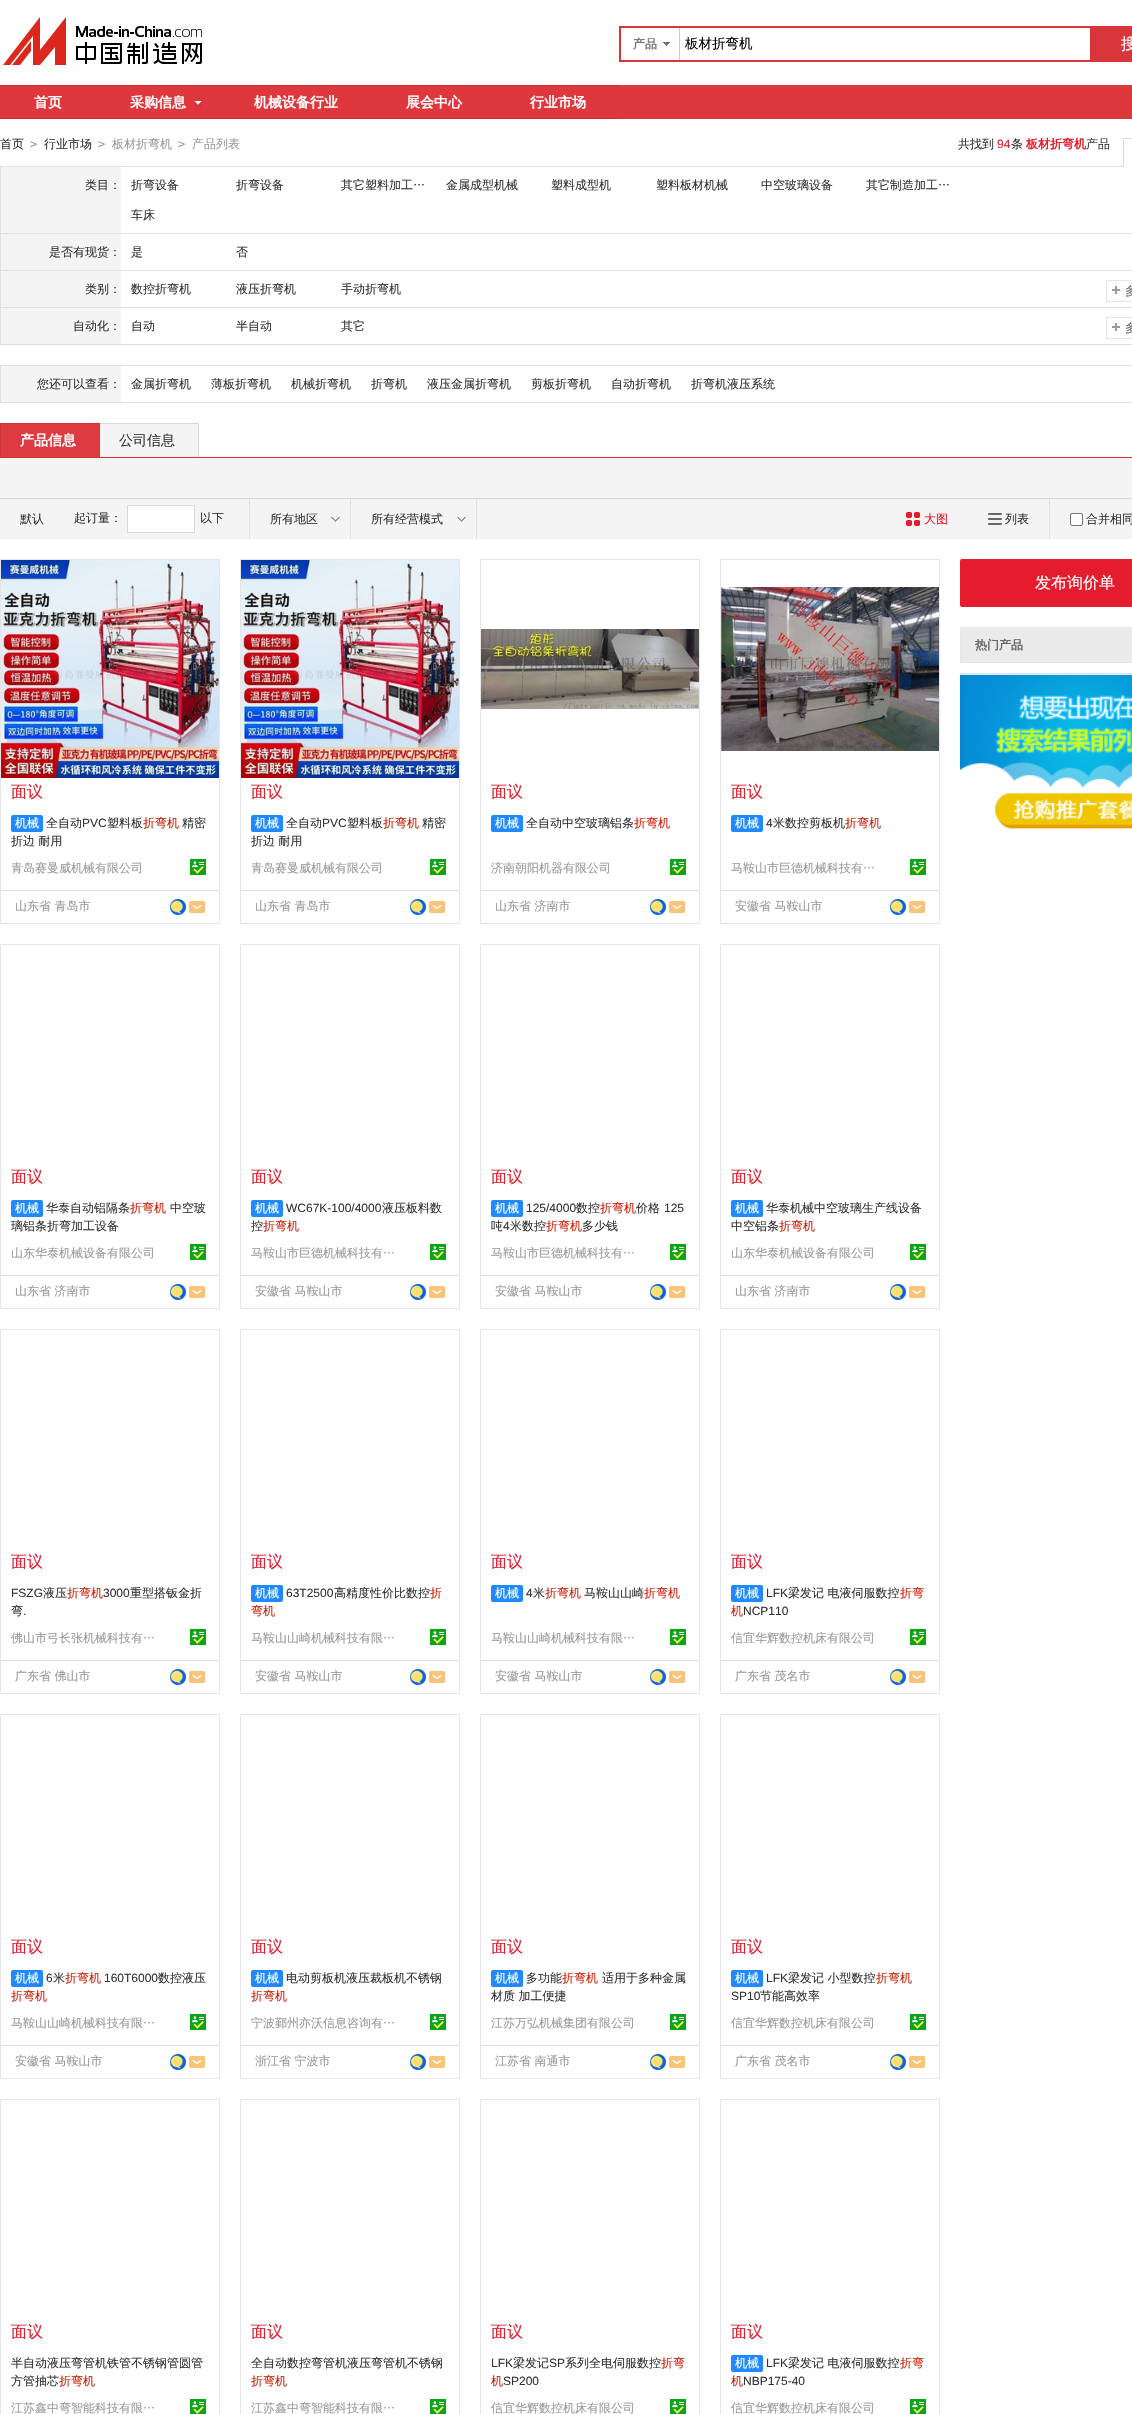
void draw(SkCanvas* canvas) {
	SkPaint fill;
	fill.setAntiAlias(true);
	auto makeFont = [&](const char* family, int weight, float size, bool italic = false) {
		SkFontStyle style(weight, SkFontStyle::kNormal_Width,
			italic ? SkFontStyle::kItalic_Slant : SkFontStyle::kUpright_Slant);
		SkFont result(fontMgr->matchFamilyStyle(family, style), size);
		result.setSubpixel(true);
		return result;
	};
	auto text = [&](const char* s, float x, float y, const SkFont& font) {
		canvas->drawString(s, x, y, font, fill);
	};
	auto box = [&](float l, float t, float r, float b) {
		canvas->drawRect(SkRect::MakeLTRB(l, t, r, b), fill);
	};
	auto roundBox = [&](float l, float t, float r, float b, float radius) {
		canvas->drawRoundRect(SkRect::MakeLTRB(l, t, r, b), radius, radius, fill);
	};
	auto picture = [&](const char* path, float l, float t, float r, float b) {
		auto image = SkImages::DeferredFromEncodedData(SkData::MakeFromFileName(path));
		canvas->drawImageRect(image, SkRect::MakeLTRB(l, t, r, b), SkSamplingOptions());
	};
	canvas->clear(0xFFFFFFFF);
	picture("image0.png", 3, 17, 202, 65);
	fill.setColor(0xFFD9363C);
	box(619, 26, 1090, 28);
	box(619, 60, 1090, 62);
	box(619, 26, 621, 62);
	picture("image1.png", 663, 42, 670, 46);
	fill.setColor(0xFFCCCCCC);
	box(679, 28, 680, 60);
	fill.setColor(0xFFD9363C);
	box(1090, 26, 1132, 62);
	fill.setColor(0xFFDE373D);
	box(0, 85, 1132, 119);
	fill.setColor(0xFFD32A2F);
	box(0, 85, 96, 86);
	box(0, 118, 96, 119);
	box(96, 85, 220, 86);
	box(96, 118, 220, 119);
	fill.setColor(0xFFFFFFFF);
	canvas->drawPath(SkPathBuilder().moveTo(194, 101).lineTo(202, 101).lineTo(198, 105).close().detach(), fill);
	fill.setColor(0xFFDE3237);
	canvas->drawPath(SkPathBuilder().moveTo(202, 101).lineTo(202, 109).lineTo(198, 105).close().detach(), fill);
	box(194, 105, 202, 109);
	canvas->drawPath(SkPathBuilder().moveTo(194, 109).lineTo(194, 101).lineTo(198, 105).close().detach(), fill);
	fill.setColor(0xFFD32A2F);
	box(220, 85, 620, 86);
	box(220, 118, 620, 119);
	fill.setColor(0xFFE0E0E0);
	box(0, 344, 1132, 345);
	box(0, 166, 1, 345);
	fill.setColor(0xFFD9D9D9);
	box(1123, 138, 1132, 139);
	box(1123, 138, 1124, 167);
	fill.setColor(0xFFF4F4F4);
	box(1, 167, 121, 233);
	fill.setColor(0xFFE0E0E0);
	box(1, 166, 1123, 167);
	fill.setColor(0xFFF4F4F4);
	box(1, 234, 121, 270);
	fill.setColor(0xFFE0E0E0);
	box(1, 233, 1132, 234);
	fill.setColor(0xFFF4F4F4);
	box(1, 271, 121, 307);
	fill.setColor(0xFFE0E0E0);
	box(1, 270, 1132, 271);
	fill.setStyle(SkPaint::kStroke_Style);
	fill.setStrokeWidth(1);
	fill.setColor(0xFFE6E6E6);
	canvas->drawRect(SkRect::MakeLTRB(1106.5f, 280.5f, 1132.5f, 301.5f), fill);
	picture("image2.png", 1112, 286, 1120, 294);
	fill.setStyle(SkPaint::kFill_Style);
	fill.setColor(0xFFF4F4F4);
	box(1, 308, 121, 344);
	fill.setColor(0xFFE0E0E0);
	box(1, 307, 1132, 308);
	fill.setStyle(SkPaint::kStroke_Style);
	fill.setColor(0xFFE6E6E6);
	canvas->drawRect(SkRect::MakeLTRB(1106.5f, 317.5f, 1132.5f, 338.5f), fill);
	picture("image2.png", 1112, 323, 1120, 331);
	fill.setStyle(SkPaint::kFill_Style);
	fill.setColor(0xFFE0E0E0);
	box(0, 402, 1132, 403);
	box(0, 365, 1, 403);
	fill.setColor(0xFFF4F4F4);
	box(1, 366, 121, 402);
	fill.setColor(0xFFE0E0E0);
	box(1, 365, 1132, 366);
	fill.setColor(0xFFCF3439);
	box(0, 457, 1132, 458);
	fill.setColor(0xFFDD3B41);
	box(1, 424, 99, 457);
	fill.setColor(0xFFD9D9D9);
	box(99, 423, 199, 424);
	fill.setColor(0xFFCF3439);
	box(0, 423, 100, 424);
	box(99, 423, 100, 457);
	box(0, 423, 1, 457);
	fill.setColor(0xFFF4F4F4);
	box(100, 424, 198, 457);
	fill.setColor(0xFFD9D9D9);
	box(198, 423, 199, 457);
	fill.setColor(0xFFF4F4F4);
	box(0, 458, 1132, 498);
	fill.setColor(0xFFD9D9D9);
	box(0, 498, 1132, 499);
	fill.setColor(0xFFF4F4F4);
	box(0, 499, 1132, 539);
	fill.setColor(0xFFE0E0E0);
	box(249, 499, 250, 539);
	fill.setColor(0xFFFFFFFF);
	canvas->drawRect(SkRect::MakeLTRB(127.5f, 505.5f, 194.5f, 532.5f), fill);
	fill.setStyle(SkPaint::kStroke_Style);
	fill.setColor(0xFFD9D9D9);
	canvas->drawRect(SkRect::MakeLTRB(127.5f, 505.5f, 194.5f, 532.5f), fill);
	fill.setStyle(SkPaint::kFill_Style);
	fill.setColor(0xFFE0E0E0);
	box(350, 499, 351, 539);
	picture("image3.png", 331, 517, 340, 522);
	box(476, 499, 477, 539);
	picture("image3.png", 457, 517, 466, 522);
	picture("image4.png", 906, 512, 920, 526);
	box(1049, 499, 1050, 539);
	picture("image5.png", 988, 513, 1002, 525);
	fill.setColor(0xFFFFFFFF);
	canvas->drawRoundRect(SkRect::MakeLTRB(1070.5f, 513.5f, 1082.5f, 525.5f), 1.5f, 1.5f, fill);
	fill.setStyle(SkPaint::kStroke_Style);
	fill.setColor(0xFF767676);
	canvas->drawRoundRect(SkRect::MakeLTRB(1070.5f, 513.5f, 1082.5f, 525.5f), 1.5f, 1.5f, fill);
	fill.setStyle(SkPaint::kFill_Style);
	fill.setColor(0xFFE41C2E);
	roundBox(960, 559, 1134, 607, 2);
	fill.setStyle(SkPaint::kStroke_Style);
	fill.setColor(0xFFE6E6E6);
	canvas->drawRect(SkRect::MakeLTRB(960.5f, 627.5f, 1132.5f, 662.5f), fill);
	fill.setStyle(SkPaint::kFill_Style);
	fill.setColor(0xFFEAEAEA);
	box(961, 628, 1132, 662);
	fill.setColor(0xFFE6E6E6);
	box(960, 673, 1132, 675);
	picture("image6.png", 960, 675, 1132, 829);
	fill.setStyle(SkPaint::kStroke_Style);
	canvas->drawRect(SkRect::MakeLTRB(0.5f, 559.5f, 219.5f, 923.5f), fill);
	picture("image7.png", 1, 560, 219, 778);
	fill.setStyle(SkPaint::kFill_Style);
	fill.setColor(0xFF2288FF);
	roundBox(11, 815, 43, 832, 2);
	picture("image8.png", 190, 859, 206, 875);
	fill.setColor(0xFFE0E0E0);
	box(1, 890, 219, 891);
	picture("image9.png", 170, 899, 186, 915);
	picture("image10.png", 189, 901, 205, 913);
	fill.setStyle(SkPaint::kStroke_Style);
	fill.setColor(0xFFE6E6E6);
	canvas->drawRect(SkRect::MakeLTRB(240.5f, 559.5f, 459.5f, 923.5f), fill);
	picture("image7.png", 241, 560, 459, 778);
	fill.setStyle(SkPaint::kFill_Style);
	fill.setColor(0xFF2288FF);
	roundBox(251, 815, 283, 832, 2);
	picture("image8.png", 430, 859, 446, 875);
	fill.setColor(0xFFE0E0E0);
	box(241, 890, 459, 891);
	picture("image9.png", 410, 899, 426, 915);
	picture("image10.png", 429, 901, 445, 913);
	fill.setStyle(SkPaint::kStroke_Style);
	fill.setColor(0xFFE6E6E6);
	canvas->drawRect(SkRect::MakeLTRB(480.5f, 559.5f, 699.5f, 923.5f), fill);
	picture("image11.png", 481, 629, 699, 709);
	fill.setStyle(SkPaint::kFill_Style);
	fill.setColor(0xFF2288FF);
	roundBox(491, 815, 523, 832, 2);
	picture("image8.png", 670, 859, 686, 875);
	fill.setColor(0xFFE0E0E0);
	box(481, 890, 699, 891);
	picture("image9.png", 650, 899, 666, 915);
	picture("image10.png", 669, 901, 685, 913);
	fill.setStyle(SkPaint::kStroke_Style);
	fill.setColor(0xFFE6E6E6);
	canvas->drawRect(SkRect::MakeLTRB(720.5f, 559.5f, 939.5f, 923.5f), fill);
	picture("image12.png", 721, 587, 939, 751);
	fill.setStyle(SkPaint::kFill_Style);
	fill.setColor(0xFF2288FF);
	roundBox(731, 815, 763, 832, 2);
	picture("image8.png", 910, 859, 926, 875);
	fill.setColor(0xFFE0E0E0);
	box(721, 890, 939, 891);
	picture("image9.png", 890, 899, 906, 915);
	picture("image10.png", 909, 901, 925, 913);
	fill.setStyle(SkPaint::kStroke_Style);
	fill.setColor(0xFFE6E6E6);
	canvas->drawRect(SkRect::MakeLTRB(0.5f, 944.5f, 219.5f, 1308.5f), fill);
	fill.setStyle(SkPaint::kFill_Style);
	fill.setColor(0xFF2288FF);
	roundBox(11, 1200, 43, 1217, 2);
	picture("image8.png", 190, 1244, 206, 1260);
	fill.setColor(0xFFE0E0E0);
	box(1, 1275, 219, 1276);
	picture("image9.png", 170, 1284, 186, 1300);
	picture("image10.png", 189, 1286, 205, 1298);
	fill.setStyle(SkPaint::kStroke_Style);
	fill.setColor(0xFFE6E6E6);
	canvas->drawRect(SkRect::MakeLTRB(240.5f, 944.5f, 459.5f, 1308.5f), fill);
	fill.setStyle(SkPaint::kFill_Style);
	fill.setColor(0xFF2288FF);
	roundBox(251, 1200, 283, 1217, 2);
	picture("image8.png", 430, 1244, 446, 1260);
	fill.setColor(0xFFE0E0E0);
	box(241, 1275, 459, 1276);
	picture("image9.png", 410, 1284, 426, 1300);
	picture("image10.png", 429, 1286, 445, 1298);
	fill.setStyle(SkPaint::kStroke_Style);
	fill.setColor(0xFFE6E6E6);
	canvas->drawRect(SkRect::MakeLTRB(480.5f, 944.5f, 699.5f, 1308.5f), fill);
	fill.setStyle(SkPaint::kFill_Style);
	fill.setColor(0xFF2288FF);
	roundBox(491, 1200, 523, 1217, 2);
	picture("image8.png", 670, 1244, 686, 1260);
	fill.setColor(0xFFE0E0E0);
	box(481, 1275, 699, 1276);
	picture("image9.png", 650, 1284, 666, 1300);
	picture("image10.png", 669, 1286, 685, 1298);
	fill.setStyle(SkPaint::kStroke_Style);
	fill.setColor(0xFFE6E6E6);
	canvas->drawRect(SkRect::MakeLTRB(720.5f, 944.5f, 939.5f, 1308.5f), fill);
	fill.setStyle(SkPaint::kFill_Style);
	fill.setColor(0xFF2288FF);
	roundBox(731, 1200, 763, 1217, 2);
	picture("image8.png", 910, 1244, 926, 1260);
	fill.setColor(0xFFE0E0E0);
	box(721, 1275, 939, 1276);
	picture("image9.png", 890, 1284, 906, 1300);
	picture("image10.png", 909, 1286, 925, 1298);
	fill.setStyle(SkPaint::kStroke_Style);
	fill.setColor(0xFFE6E6E6);
	canvas->drawRect(SkRect::MakeLTRB(0.5f, 1329.5f, 219.5f, 1693.5f), fill);
	picture("image8.png", 190, 1629, 206, 1645);
	fill.setStyle(SkPaint::kFill_Style);
	fill.setColor(0xFFE0E0E0);
	box(1, 1660, 219, 1661);
	picture("image9.png", 170, 1669, 186, 1685);
	picture("image10.png", 189, 1671, 205, 1683);
	fill.setStyle(SkPaint::kStroke_Style);
	fill.setColor(0xFFE6E6E6);
	canvas->drawRect(SkRect::MakeLTRB(240.5f, 1329.5f, 459.5f, 1693.5f), fill);
	fill.setStyle(SkPaint::kFill_Style);
	fill.setColor(0xFF2288FF);
	roundBox(251, 1585, 283, 1602, 2);
	picture("image8.png", 430, 1629, 446, 1645);
	fill.setColor(0xFFE0E0E0);
	box(241, 1660, 459, 1661);
	picture("image9.png", 410, 1669, 426, 1685);
	picture("image10.png", 429, 1671, 445, 1683);
	fill.setStyle(SkPaint::kStroke_Style);
	fill.setColor(0xFFE6E6E6);
	canvas->drawRect(SkRect::MakeLTRB(480.5f, 1329.5f, 699.5f, 1693.5f), fill);
	fill.setStyle(SkPaint::kFill_Style);
	fill.setColor(0xFF2288FF);
	roundBox(491, 1585, 523, 1602, 2);
	picture("image8.png", 670, 1629, 686, 1645);
	fill.setColor(0xFFE0E0E0);
	box(481, 1660, 699, 1661);
	picture("image9.png", 650, 1669, 666, 1685);
	picture("image10.png", 669, 1671, 685, 1683);
	fill.setStyle(SkPaint::kStroke_Style);
	fill.setColor(0xFFE6E6E6);
	canvas->drawRect(SkRect::MakeLTRB(720.5f, 1329.5f, 939.5f, 1693.5f), fill);
	fill.setStyle(SkPaint::kFill_Style);
	fill.setColor(0xFF2288FF);
	roundBox(731, 1585, 763, 1602, 2);
	picture("image8.png", 910, 1629, 926, 1645);
	fill.setColor(0xFFE0E0E0);
	box(721, 1660, 939, 1661);
	picture("image9.png", 890, 1669, 906, 1685);
	picture("image10.png", 909, 1671, 925, 1683);
	fill.setStyle(SkPaint::kStroke_Style);
	fill.setColor(0xFFE6E6E6);
	canvas->drawRect(SkRect::MakeLTRB(0.5f, 1714.5f, 219.5f, 2078.5f), fill);
	fill.setStyle(SkPaint::kFill_Style);
	fill.setColor(0xFF2288FF);
	roundBox(11, 1970, 43, 1987, 2);
	picture("image8.png", 190, 2014, 206, 2030);
	fill.setColor(0xFFE0E0E0);
	box(1, 2045, 219, 2046);
	picture("image9.png", 170, 2054, 186, 2070);
	picture("image10.png", 189, 2056, 205, 2068);
	fill.setStyle(SkPaint::kStroke_Style);
	fill.setColor(0xFFE6E6E6);
	canvas->drawRect(SkRect::MakeLTRB(240.5f, 1714.5f, 459.5f, 2078.5f), fill);
	fill.setStyle(SkPaint::kFill_Style);
	fill.setColor(0xFF2288FF);
	roundBox(251, 1970, 283, 1987, 2);
	picture("image8.png", 430, 2014, 446, 2030);
	fill.setColor(0xFFE0E0E0);
	box(241, 2045, 459, 2046);
	picture("image9.png", 410, 2054, 426, 2070);
	picture("image10.png", 429, 2056, 445, 2068);
	fill.setStyle(SkPaint::kStroke_Style);
	fill.setColor(0xFFE6E6E6);
	canvas->drawRect(SkRect::MakeLTRB(480.5f, 1714.5f, 699.5f, 2078.5f), fill);
	fill.setStyle(SkPaint::kFill_Style);
	fill.setColor(0xFF2288FF);
	roundBox(491, 1970, 523, 1987, 2);
	picture("image8.png", 670, 2014, 686, 2030);
	fill.setColor(0xFFE0E0E0);
	box(481, 2045, 699, 2046);
	picture("image9.png", 650, 2054, 666, 2070);
	picture("image10.png", 669, 2056, 685, 2068);
	fill.setStyle(SkPaint::kStroke_Style);
	fill.setColor(0xFFE6E6E6);
	canvas->drawRect(SkRect::MakeLTRB(720.5f, 1714.5f, 939.5f, 2078.5f), fill);
	fill.setStyle(SkPaint::kFill_Style);
	fill.setColor(0xFF2288FF);
	roundBox(731, 1970, 763, 1987, 2);
	picture("image8.png", 910, 2014, 926, 2030);
	fill.setColor(0xFFE0E0E0);
	box(721, 2045, 939, 2046);
	picture("image9.png", 890, 2054, 906, 2070);
	picture("image10.png", 909, 2056, 925, 2068);
	fill.setStyle(SkPaint::kStroke_Style);
	fill.setColor(0xFFE6E6E6);
	canvas->drawRect(SkRect::MakeLTRB(0.5f, 2099.5f, 219.5f, 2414.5f), fill);
	picture("image13.png", 190, 2399, 206, 2414);
	canvas->drawRect(SkRect::MakeLTRB(240.5f, 2099.5f, 459.5f, 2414.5f), fill);
	picture("image13.png", 430, 2399, 446, 2414);
	canvas->drawRect(SkRect::MakeLTRB(480.5f, 2099.5f, 699.5f, 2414.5f), fill);
	picture("image13.png", 670, 2399, 686, 2414);
	canvas->drawRect(SkRect::MakeLTRB(720.5f, 2099.5f, 939.5f, 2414.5f), fill);
	fill.setStyle(SkPaint::kFill_Style);
	fill.setColor(0xFF2288FF);
	roundBox(731, 2355, 763, 2372, 2);
	picture("image13.png", 910, 2399, 926, 2414);
	auto font1 = makeFont("WenQuanYi Zen Hei", 700, 12);
	fill.setColor(0xFF777777);
	text("产品", 633, 48, font1);
	auto font2 = makeFont("WenQuanYi Zen Hei", 500, 13.5f);
	fill.setColor(0xFF000000);
	text("板材折弯机", 685, 48, font2);
	auto font3 = makeFont("WenQuanYi Zen Hei", 500, 16);
	fill.setColor(0xFFFFFFFF);
	text("搜", 1121, 49, font3);
	auto font4 = makeFont("WenQuanYi Zen Hei", 700, 14);
	text("首页", 34, 107, font4);
	text("采购信息", 130, 107, font4);
	text("机械设备行业", 254, 107, font4);
	text("展会中心", 406, 107, font4);
	text("行业市场", 530, 107, font4);
	auto font5 = makeFont("WenQuanYi Zen Hei", 500, 12);
	fill.setColor(0xFF333333);
	text("首页", 0, 148, font5);
	auto font6 = makeFont("DejaVu Sans Mono", 400, 12);
	fill.setColor(0xFF999999);
	text(">", 30, 148, font6);
	fill.setColor(0xFF333333);
	text("行业市场", 44, 148, font5);
	fill.setColor(0xFF999999);
	text(">", 98, 148, font6);
	text("板材折弯机", 112, 148, font5);
	text(">", 178, 148, font6);
	text("产品列表", 192, 148, font5);
	fill.setColor(0xFF333333);
	text("共找到", 958, 148, font5);
	auto font7 = makeFont("Liberation Sans", 400, 12);
	fill.setColor(0xFFE41C2E);
	text("94", 997, 148, font7);
	fill.setColor(0xFF333333);
	text("条", 1011, 148, font5);
	fill.setColor(0xFFE41C2E);
	text("板材折弯机", 1026, 148, font1);
	fill.setColor(0xFF333333);
	text("产品", 1086, 148, font5);
	text("类目：", 85, 189, font5);
	text("折弯设备", 131, 189, font5);
	text("折弯设备", 236, 189, font5);
	text("其它塑料加工…", 341, 189, font5);
	text("金属成型机械", 446, 189, font5);
	text("塑料成型机", 551, 189, font5);
	text("塑料板材机械", 656, 189, font5);
	text("中空玻璃设备", 761, 189, font5);
	text("其它制造加工…", 866, 189, font5);
	text("车床", 131, 219, font5);
	text("是否有现货：", 49, 256, font5);
	text("是", 131, 256, font5);
	text("否", 236, 256, font5);
	text("类别：", 85, 293, font5);
	text("数控折弯机", 131, 293, font5);
	text("液压折弯机", 236, 293, font5);
	text("手动折弯机", 341, 293, font5);
	fill.setColor(0xFF666666);
	text("多", 1125, 295, font5);
	fill.setColor(0xFF333333);
	text("自动化：", 73, 330, font5);
	text("自动", 131, 330, font5);
	text("半自动", 236, 330, font5);
	text("其它", 341, 330, font5);
	fill.setColor(0xFF666666);
	text("多", 1125, 332, font5);
	fill.setColor(0xFF333333);
	text("您还可以查看：", 37, 388, font5);
	text("金属折弯机", 131, 388, font5);
	text("薄板折弯机", 211, 388, font5);
	text("机械折弯机", 291, 388, font5);
	text("折弯机", 371, 388, font5);
	text("液压金属折弯机", 427, 388, font5);
	text("剪板折弯机", 531, 388, font5);
	text("自动折弯机", 611, 388, font5);
	text("折弯机液压系统", 691, 388, font5);
	fill.setColor(0xFFFFFFFF);
	text("产品信息", 20, 445, font4);
	auto font8 = makeFont("WenQuanYi Zen Hei", 500, 14);
	fill.setColor(0xFF333333);
	text("公司信息", 119, 445, font8);
	text("默认", 20, 523, font5);
	text("起订量：", 74, 522, font5);
	text("以下", 200, 522, font5);
	text("所有地区", 270, 523, font5);
	text("所有经营模式", 371, 523, font5);
	fill.setColor(0xFFE41C2E);
	text("大图", 924, 523, font5);
	fill.setColor(0xFF333333);
	text("列表", 1005, 523, font5);
	text("合并相同", 1086, 523, font5);
	fill.setColor(0xFFFFFFFF);
	text("发布询价单", 1035, 588, font3);
	fill.setColor(0xFF666666);
	text("热门产品", 975, 649, font1);
	fill.setColor(0xFFE41C2E);
	text("面议", 11, 797, font3);
	fill.setColor(0xFFFFFFFF);
	text("机械", 15, 827, font5);
	fill.setColor(0xFF333333);
	text("全自动", 46, 827, font5);
	text("PVC", 82, 827, font7);
	text("塑料板", 107, 827, font5);
	fill.setColor(0xFFCC220B);
	text("折弯机", 143, 827, font5);
	fill.setColor(0xFF333333);
	text("精密", 182, 827, font5);
	text("折边 耐用", 11, 845, font5);
	fill.setColor(0xFF999999);
	text("青岛赛曼威机械有限公司", 11, 872, font5);
	text("山东省 青岛市", 15, 910, font5);
	fill.setColor(0xFFE41C2E);
	text("面议", 251, 797, font3);
	fill.setColor(0xFFFFFFFF);
	text("机械", 255, 827, font5);
	fill.setColor(0xFF333333);
	text("全自动", 286, 827, font5);
	text("PVC", 322, 827, font7);
	text("塑料板", 347, 827, font5);
	fill.setColor(0xFFCC220B);
	text("折弯机", 383, 827, font5);
	fill.setColor(0xFF333333);
	text("精密", 422, 827, font5);
	text("折边 耐用", 251, 845, font5);
	fill.setColor(0xFF999999);
	text("青岛赛曼威机械有限公司", 251, 872, font5);
	text("山东省 青岛市", 255, 910, font5);
	fill.setColor(0xFFE41C2E);
	text("面议", 491, 797, font3);
	fill.setColor(0xFFFFFFFF);
	text("机械", 495, 827, font5);
	fill.setColor(0xFF333333);
	text("全自动中空玻璃铝条", 526, 827, font5);
	fill.setColor(0xFFCC220B);
	text("折弯机", 634, 827, font5);
	fill.setColor(0xFF999999);
	text("济南朝阳机器有限公司", 491, 872, font5);
	text("山东省 济南市", 495, 910, font5);
	fill.setColor(0xFFE41C2E);
	text("面议", 731, 797, font3);
	fill.setColor(0xFFFFFFFF);
	text("机械", 735, 827, font5);
	fill.setColor(0xFF333333);
	text("4", 766, 827, font7);
	text("米数控剪板机", 773, 827, font5);
	fill.setColor(0xFFCC220B);
	text("折弯机", 845, 827, font5);
	fill.setColor(0xFF999999);
	text("马鞍山市巨德机械科技有…", 731, 872, font5);
	text("安徽省 马鞍山市", 735, 910, font5);
	fill.setColor(0xFFE41C2E);
	text("面议", 11, 1182, font3);
	fill.setColor(0xFFFFFFFF);
	text("机械", 15, 1212, font5);
	fill.setColor(0xFF333333);
	text("华泰自动铝隔条", 46, 1212, font5);
	fill.setColor(0xFFCC220B);
	text("折弯机", 130, 1212, font5);
	fill.setColor(0xFF333333);
	text("中空玻", 170, 1212, font5);
	text("璃铝条折弯加工设备", 11, 1230, font5);
	fill.setColor(0xFF999999);
	text("山东华泰机械设备有限公司", 11, 1257, font5);
	text("山东省 济南市", 15, 1295, font5);
	fill.setColor(0xFFE41C2E);
	text("面议", 251, 1182, font3);
	fill.setColor(0xFFFFFFFF);
	text("机械", 255, 1212, font5);
	fill.setColor(0xFF333333);
	text("WC67K-100/4000", 286, 1212, font7);
	text("液压板料数", 382, 1212, font5);
	text("控", 251, 1230, font5);
	fill.setColor(0xFFCC220B);
	text("折弯机", 263, 1230, font5);
	fill.setColor(0xFF999999);
	text("马鞍山市巨德机械科技有…", 251, 1257, font5);
	text("安徽省 马鞍山市", 255, 1295, font5);
	fill.setColor(0xFFE41C2E);
	text("面议", 491, 1182, font3);
	fill.setColor(0xFFFFFFFF);
	text("机械", 495, 1212, font5);
	fill.setColor(0xFF333333);
	text("125/4000", 526, 1212, font7);
	text("数控", 576, 1212, font5);
	fill.setColor(0xFFCC220B);
	text("折弯机", 600, 1212, font5);
	fill.setColor(0xFF333333);
	text("价格", 636, 1212, font5);
	text("125", 664, 1212, font7);
	text("吨", 491, 1230, font5);
	text("4", 503, 1230, font7);
	text("米数控", 510, 1230, font5);
	fill.setColor(0xFFCC220B);
	text("折弯机", 546, 1230, font5);
	fill.setColor(0xFF333333);
	text("多少钱", 582, 1230, font5);
	fill.setColor(0xFF999999);
	text("马鞍山市巨德机械科技有…", 491, 1257, font5);
	text("安徽省 马鞍山市", 495, 1295, font5);
	fill.setColor(0xFFE41C2E);
	text("面议", 731, 1182, font3);
	fill.setColor(0xFFFFFFFF);
	text("机械", 735, 1212, font5);
	fill.setColor(0xFF333333);
	text("华泰机械中空玻璃生产线设备", 766, 1212, font5);
	text("中空铝条", 731, 1230, font5);
	fill.setColor(0xFFCC220B);
	text("折弯机", 779, 1230, font5);
	fill.setColor(0xFF999999);
	text("山东华泰机械设备有限公司", 731, 1257, font5);
	text("山东省 济南市", 735, 1295, font5);
	fill.setColor(0xFFE41C2E);
	text("面议", 11, 1567, font3);
	fill.setColor(0xFF333333);
	text("FSZG", 11, 1597, font7);
	text("液压", 43, 1597, font5);
	fill.setColor(0xFFCC220B);
	text("折弯机", 67, 1597, font5);
	fill.setColor(0xFF333333);
	text("3000", 103, 1597, font7);
	text("重型搭钣金折", 130, 1597, font5);
	text("弯", 11, 1615, font5);
	text(".", 23, 1615, font7);
	fill.setColor(0xFF999999);
	text("佛山市弓长张机械科技有…", 11, 1642, font5);
	text("广东省 佛山市", 15, 1680, font5);
	fill.setColor(0xFFE41C2E);
	text("面议", 251, 1567, font3);
	fill.setColor(0xFFFFFFFF);
	text("机械", 255, 1597, font5);
	fill.setColor(0xFF333333);
	text("63T2500", 286, 1597, font7);
	text("高精度性价比数控", 334, 1597, font5);
	fill.setColor(0xFFCC220B);
	text("折", 430, 1597, font5);
	text("弯机", 251, 1615, font5);
	fill.setColor(0xFF999999);
	text("马鞍山山崎机械科技有限…", 251, 1642, font5);
	text("安徽省 马鞍山市", 255, 1680, font5);
	fill.setColor(0xFFE41C2E);
	text("面议", 491, 1567, font3);
	fill.setColor(0xFFFFFFFF);
	text("机械", 495, 1597, font5);
	fill.setColor(0xFF333333);
	text("4", 526, 1597, font7);
	text("米", 533, 1597, font5);
	fill.setColor(0xFFCC220B);
	text("折弯机", 545, 1597, font5);
	fill.setColor(0xFF333333);
	text("马鞍山山崎", 584, 1597, font5);
	fill.setColor(0xFFCC220B);
	text("折弯机", 644, 1597, font5);
	fill.setColor(0xFF999999);
	text("马鞍山山崎机械科技有限…", 491, 1642, font5);
	text("安徽省 马鞍山市", 495, 1680, font5);
	fill.setColor(0xFFE41C2E);
	text("面议", 731, 1567, font3);
	fill.setColor(0xFFFFFFFF);
	text("机械", 735, 1597, font5);
	fill.setColor(0xFF333333);
	text("LFK", 766, 1597, font7);
	text("梁发记 电液伺服数控", 788, 1597, font5);
	fill.setColor(0xFFCC220B);
	text("折弯", 900, 1597, font5);
	text("机", 731, 1615, font5);
	fill.setColor(0xFF333333);
	text("NCP110", 743, 1615, font7);
	fill.setColor(0xFF999999);
	text("信宜华辉数控机床有限公司", 731, 1642, font5);
	text("广东省 茂名市", 735, 1680, font5);
	fill.setColor(0xFFE41C2E);
	text("面议", 11, 1952, font3);
	fill.setColor(0xFFFFFFFF);
	text("机械", 15, 1982, font5);
	fill.setColor(0xFF333333);
	text("6", 46, 1982, font7);
	text("米", 53, 1982, font5);
	fill.setColor(0xFFCC220B);
	text("折弯机", 65, 1982, font5);
	fill.setColor(0xFF333333);
	text("160T6000", 104, 1982, font7);
	text("数控液压", 158, 1982, font5);
	fill.setColor(0xFFCC220B);
	text("折弯机", 11, 2000, font5);
	fill.setColor(0xFF999999);
	text("马鞍山山崎机械科技有限…", 11, 2027, font5);
	text("安徽省 马鞍山市", 15, 2065, font5);
	fill.setColor(0xFFE41C2E);
	text("面议", 251, 1952, font3);
	fill.setColor(0xFFFFFFFF);
	text("机械", 255, 1982, font5);
	fill.setColor(0xFF333333);
	text("电动剪板机液压裁板机不锈钢", 286, 1982, font5);
	fill.setColor(0xFFCC220B);
	text("折弯机", 251, 2000, font5);
	fill.setColor(0xFF999999);
	text("宁波鄞州亦沃信息咨询有…", 251, 2027, font5);
	text("浙江省 宁波市", 255, 2065, font5);
	fill.setColor(0xFFE41C2E);
	text("面议", 491, 1952, font3);
	fill.setColor(0xFFFFFFFF);
	text("机械", 495, 1982, font5);
	fill.setColor(0xFF333333);
	text("多功能", 526, 1982, font5);
	fill.setColor(0xFFCC220B);
	text("折弯机", 562, 1982, font5);
	fill.setColor(0xFF333333);
	text("适用于多种金属", 602, 1982, font5);
	text("材质 加工便捷", 491, 2000, font5);
	fill.setColor(0xFF999999);
	text("江苏万弘机械集团有限公司", 491, 2027, font5);
	text("江苏省 南通市", 495, 2065, font5);
	fill.setColor(0xFFE41C2E);
	text("面议", 731, 1952, font3);
	fill.setColor(0xFFFFFFFF);
	text("机械", 735, 1982, font5);
	fill.setColor(0xFF333333);
	text("LFK", 766, 1982, font7);
	text("梁发记 小型数控", 788, 1982, font5);
	fill.setColor(0xFFCC220B);
	text("折弯机", 876, 1982, font5);
	fill.setColor(0xFF333333);
	text("SP10", 731, 2000, font7);
	text("节能高效率", 760, 2000, font5);
	fill.setColor(0xFF999999);
	text("信宜华辉数控机床有限公司", 731, 2027, font5);
	text("广东省 茂名市", 735, 2065, font5);
	fill.setColor(0xFFE41C2E);
	text("面议", 11, 2337, font3);
	fill.setColor(0xFF333333);
	text("半自动液压弯管机铁管不锈钢管圆管", 11, 2367, font5);
	text("方管抽芯", 11, 2385, font5);
	fill.setColor(0xFFCC220B);
	text("折弯机", 59, 2385, font5);
	fill.setColor(0xFF999999);
	text("江苏鑫中弯智能科技有限…", 11, 2412, font5);
	fill.setColor(0xFFE41C2E);
	text("面议", 251, 2337, font3);
	fill.setColor(0xFF333333);
	text("全自动数控弯管机液压弯管机不锈钢", 251, 2367, font5);
	fill.setColor(0xFFCC220B);
	text("折弯机", 251, 2385, font5);
	fill.setColor(0xFF999999);
	text("江苏鑫中弯智能科技有限…", 251, 2412, font5);
	fill.setColor(0xFFE41C2E);
	text("面议", 491, 2337, font3);
	fill.setColor(0xFF333333);
	text("LFK", 491, 2367, font7);
	text("梁发记", 513, 2367, font5);
	text("SP", 549, 2367, font7);
	text("系列全电伺服数控", 565, 2367, font5);
	fill.setColor(0xFFCC220B);
	text("折弯", 661, 2367, font5);
	text("机", 491, 2385, font5);
	fill.setColor(0xFF333333);
	text("SP200", 503, 2385, font7);
	fill.setColor(0xFF999999);
	text("信宜华辉数控机床有限公司", 491, 2412, font5);
	fill.setColor(0xFFE41C2E);
	text("面议", 731, 2337, font3);
	fill.setColor(0xFFFFFFFF);
	text("机械", 735, 2367, font5);
	fill.setColor(0xFF333333);
	text("LFK", 766, 2367, font7);
	text("梁发记 电液伺服数控", 788, 2367, font5);
	fill.setColor(0xFFCC220B);
	text("折弯", 900, 2367, font5);
	text("机", 731, 2385, font5);
	fill.setColor(0xFF333333);
	text("NBP175-40", 743, 2385, font7);
	fill.setColor(0xFF999999);
	text("信宜华辉数控机床有限公司", 731, 2412, font5);
}
